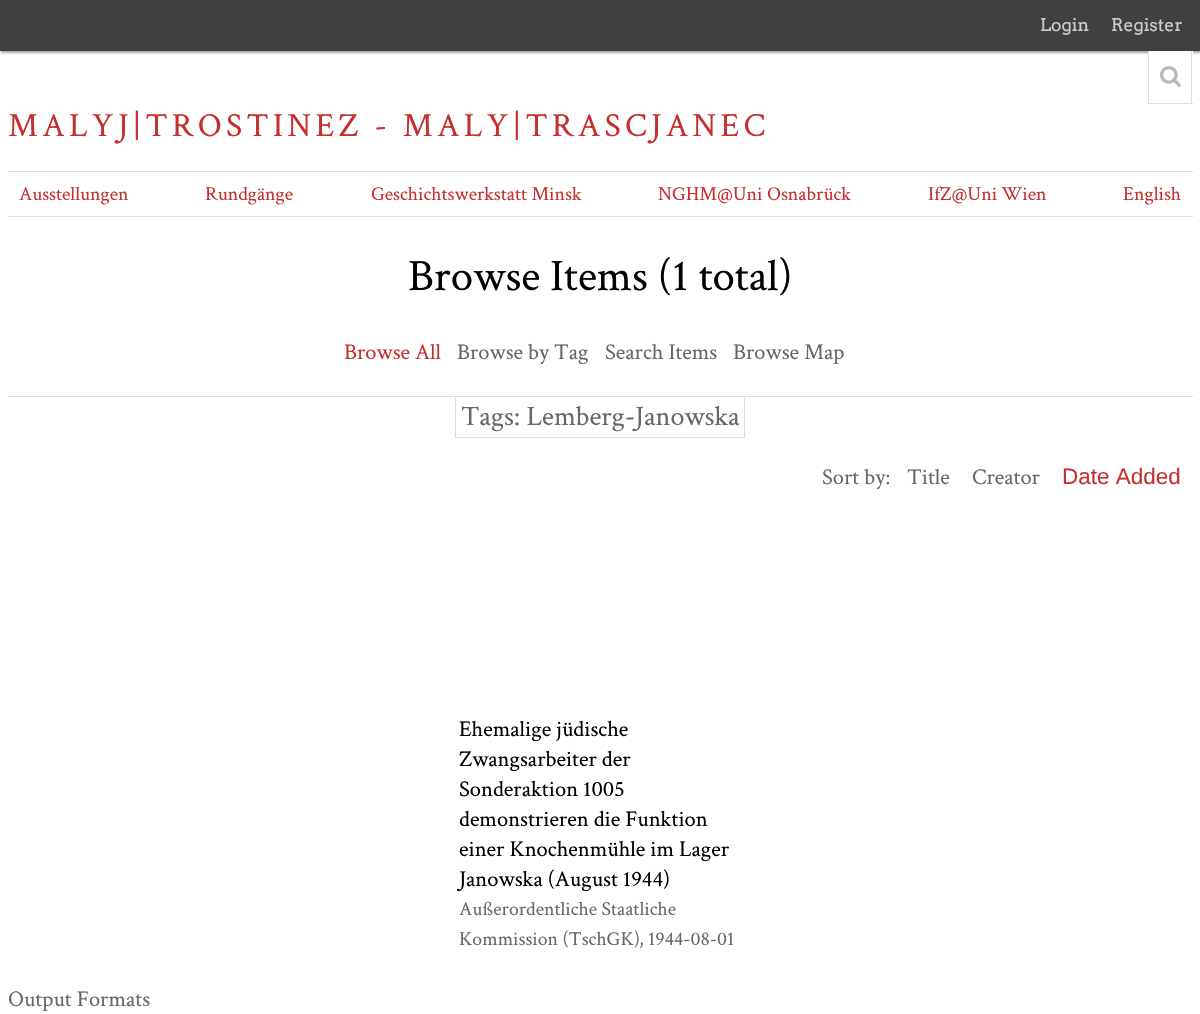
void draw(SkCanvas* canvas) {
	SkPaint fill;
	fill.setAntiAlias(true);
	auto makeFont = [&](const char* family, int weight, float size, bool italic = false) {
		SkFontStyle style(weight, SkFontStyle::kNormal_Width,
			italic ? SkFontStyle::kItalic_Slant : SkFontStyle::kUpright_Slant);
		SkFont result(fontMgr->matchFamilyStyle(family, style), size);
		result.setSubpixel(true);
		return result;
	};
	auto text = [&](const char* s, float x, float y, const SkFont& font) {
		canvas->drawString(s, x, y, font, fill);
	};
	auto spacedText = [&](const char* s, float x, float y, const SkFont& font, const SkPaint& ink, float letter, float word) {
		std::vector<SkGlyphID> glyphs(font.countText(s, strlen(s), SkTextEncoding::kUTF8));
		std::vector<float> xs(glyphs.size());
		font.textToGlyphs(s, strlen(s), SkTextEncoding::kUTF8, glyphs);
		font.getXPos(glyphs, xs, x);
		float extra = 0;
		for (size_t i = 0; i < glyphs.size(); i++) {
			xs[i] += extra;
			extra += letter + word * (glyphs[i] == font.unicharToGlyph(' '));
		}
		canvas->drawTextBlob(SkTextBlob::MakeFromPosHGlyphs(glyphs, xs, y, font), 0, 0, ink);
	};
	auto box = [&](float l, float t, float r, float b) {
		canvas->drawRect(SkRect::MakeLTRB(l, t, r, b), fill);
	};
	auto picture = [&](const char* path, float l, float t, float r, float b) {
		auto image = SkImages::DeferredFromEncodedData(SkData::MakeFromFileName(path));
		canvas->drawImageRect(image, SkRect::MakeLTRB(l, t, r, b), SkSamplingOptions());
	};
	canvas->clear(0xFFFFFFFF);
	fill.setColor(0x59000000);
	fill.setMaskFilter(SkMaskFilter::MakeBlur(kNormal_SkBlurStyle, 1));
	canvas->drawRect(SkRect::MakeLTRB(1, 1, 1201, 53), fill);
	fill.setMaskFilter(nullptr);
	fill.setColor(0xFF404040);
	box(0, 0, 1200, 51);
	fill.setColor(0xFFFFFFFF);
	box(1149, 51, 1193, 55);
	fill.setColor(0xFFDEDEDE);
	box(1191, 51, 1192, 104);
	box(1148, 103, 1193, 104);
	box(1148, 51, 1149, 104);
	picture("image0.png", 1160, 66, 1181, 87);
	box(8, 171, 1193, 172);
	box(8, 216, 1193, 217);
	box(8, 396, 1193, 397);
	fill.setStyle(SkPaint::kStroke_Style);
	fill.setStrokeWidth(1);
	canvas->drawRect(SkRect::MakeLTRB(455.5f, 396.5f, 744.5f, 437.5f), fill);
	auto font1 = makeFont("Arvo", 400, 17.5f);
	fill.setStyle(SkPaint::kFill_Style);
	fill.setColor(0xFFCCCCCC);
	text("Login", 1040, 31, font1);
	text("Register", 1111, 31, font1);
	auto font2 = makeFont("Crimson Text", 400, 33.75f);
	fill.setColor(0xFFC72E2E);
	spacedText("MALYJ|TROSTINEZ - MALY|TRASCJANEC", 8, 136, font2, fill, 4.25f, 0);
	auto font3 = makeFont("Crimson Text", 400, 19.75f);
	text("Ausstellungen", 19, 200, font3);
	text("Rundgänge", 205, 200, font3);
	text("Geschichtswerkstatt Minsk", 371, 200, font3);
	text("NGHM@Uni Osnabrück", 658, 200, font3);
	text("IfZ@Uni Wien", 928, 200, font3);
	text("English", 1123, 200, font3);
	auto font4 = makeFont("Crimson Text", 400, 45);
	fill.setColor(0xFF000000);
	text("Browse Items (1 total)", 408, 290, font4);
	auto font5 = makeFont("Crimson Text", 400, 22.5f);
	fill.setColor(0xFFC72E2E);
	text("Browse All", 344, 359, font5);
	fill.setColor(0xFF676767);
	text("Browse by Tag", 457, 359, font5);
	text("Search Items", 605, 359, font5);
	text("Browse Map", 733, 359, font5);
	auto font6 = makeFont("Crimson Text", 400, 28.1f);
	text("Tags: Lemberg-Janowska", 461, 425, font6);
	text("Sort by:", 822, 484, font5);
	text("Title", 907, 484, font5);
	text("Creator", 972, 484, font5);
	auto font7 = makeFont("Liberation Sans", 400, 22.5f);
	fill.setColor(0xFFC72E2E);
	text("Date Added", 1062, 484, font7);
	fill.setColor(0xFF000000);
	text("Ehemalige jüdische", 459, 736, font5);
	text("Zwangsarbeiter der", 459, 766, font5);
	text("Sonderaktion 1005", 459, 796, font5);
	text("demonstrieren die Funktion", 459, 826, font5);
	text("einer Knochenmühle im Lager", 459, 856, font5);
	text("Janowska (August 1944)", 459, 886, font5);
	fill.setColor(0xFF676767);
	text("Außerordentliche Staatliche", 459, 915, font3);
	text("Kommission (TschGK)", 459, 945, font3);
	text(", 1944-08-01", 639, 945, font3);
	text("Output Formats", 8, 1006, font5);
}
